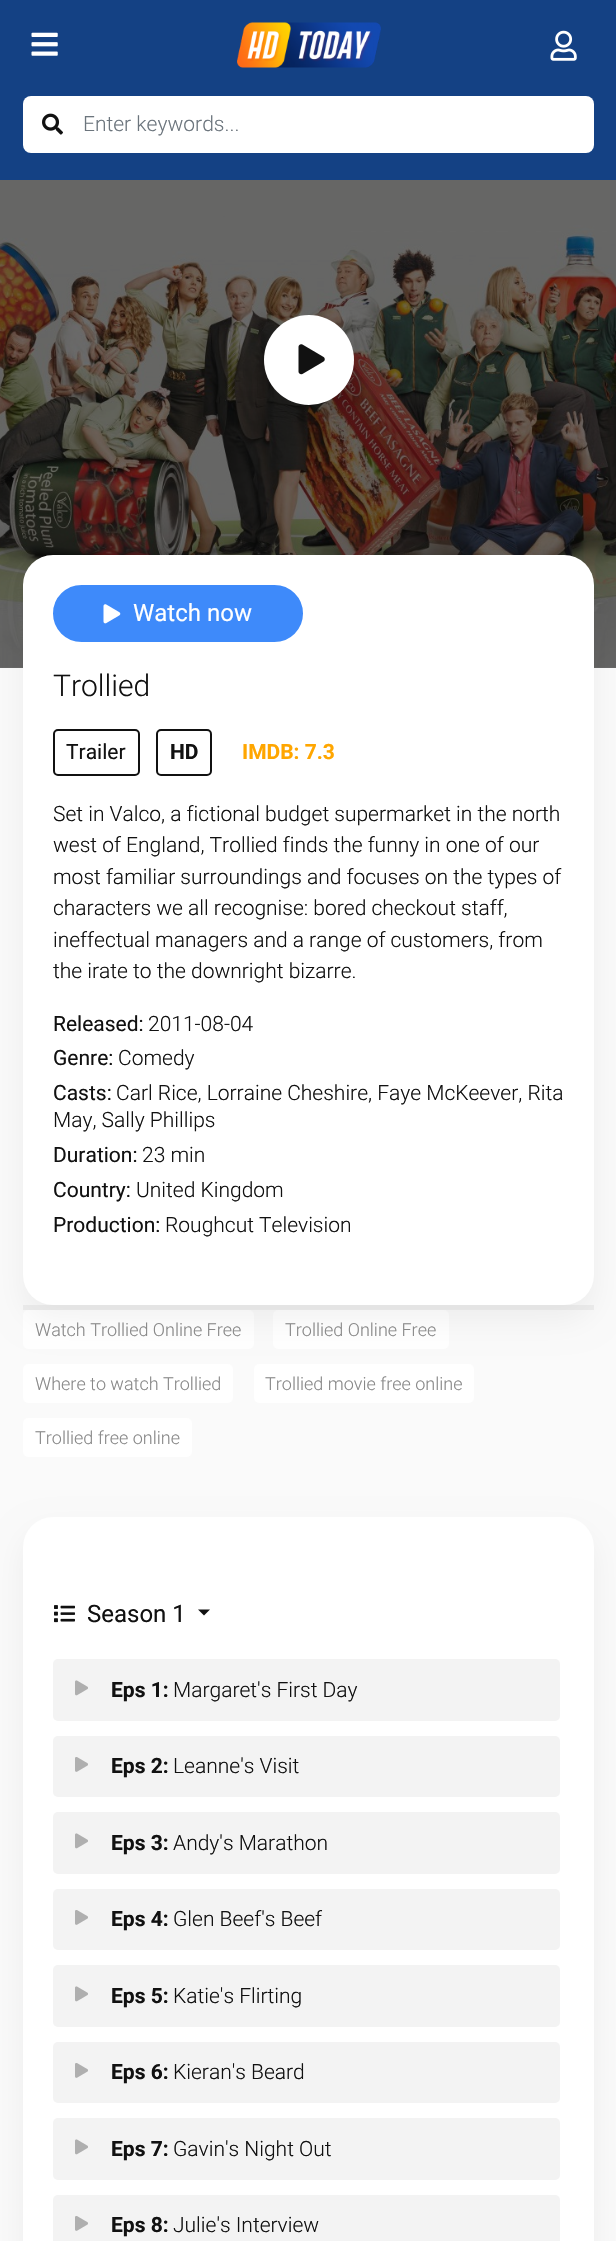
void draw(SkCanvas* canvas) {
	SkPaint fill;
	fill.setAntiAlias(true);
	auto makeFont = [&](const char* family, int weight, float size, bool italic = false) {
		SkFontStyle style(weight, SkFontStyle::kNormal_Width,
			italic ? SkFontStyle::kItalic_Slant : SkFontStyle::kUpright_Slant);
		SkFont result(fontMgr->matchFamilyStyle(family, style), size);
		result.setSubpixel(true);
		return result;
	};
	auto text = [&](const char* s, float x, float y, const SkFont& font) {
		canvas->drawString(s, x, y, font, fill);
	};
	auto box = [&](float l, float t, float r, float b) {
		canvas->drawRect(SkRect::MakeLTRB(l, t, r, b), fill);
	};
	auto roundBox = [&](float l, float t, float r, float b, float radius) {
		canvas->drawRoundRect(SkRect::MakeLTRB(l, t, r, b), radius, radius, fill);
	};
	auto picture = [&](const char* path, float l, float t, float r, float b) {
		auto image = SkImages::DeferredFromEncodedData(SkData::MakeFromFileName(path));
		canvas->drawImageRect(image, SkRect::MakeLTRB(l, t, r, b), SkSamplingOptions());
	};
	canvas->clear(0xFFFAFAFA);
	fill.setColor(0xFF6B6B6B);
	box(0, 667, 616, 668);
	fill.setColor(0xFF144184);
	box(0, 0, 616, 180);
	picture("image0.png", 31, 32, 58, 56);
	picture("image1.png", 237, 22, 381, 68);
	picture("image2.png", 550, 30, 577, 61);
	fill.setColor(0xFFFFFFFF);
	roundBox(23, 96, 594, 153, 8);
	picture("image3.png", 42, 113, 63, 135);
	picture("image4.png", 0, 180, 616, 668);
	fill.setColor(0x1A000000);
	fill.setMaskFilter(SkMaskFilter::MakeBlur(kNormal_SkBlurStyle, 15));
	canvas->drawRoundRect(SkRect::MakeLTRB(264, 345, 354, 435), 45, 45, fill);
	fill.setMaskFilter(nullptr);
	fill.setColor(0xFFFFFFFF);
	canvas->drawCircle(309, 360, 45, fill);
	picture("image5.png", 298, 344, 325, 375);
	fill.setColor(0xFFEEEEEE);
	box(23, 1305, 594, 1310);
	fill.setColor(0xFFFFFFFF);
	roundBox(23, 1310, 254, 1349, 5);
	roundBox(273, 1310, 449, 1349, 5);
	roundBox(23, 1364, 233, 1403, 5);
	roundBox(254, 1364, 474, 1403, 5);
	fill.setColor(0x0D000000);
	fill.setMaskFilter(SkMaskFilter::MakeBlur(kNormal_SkBlurStyle, 15));
	canvas->drawRoundRect(SkRect::MakeLTRB(23, 570, 594, 1320), 30, 30, fill);
	fill.setMaskFilter(nullptr);
	fill.setColor(0xFFFFFFFF);
	roundBox(23, 555, 594, 1305, 30);
	fill.setColor(0xFF3E8AFA);
	canvas->drawRoundRect(SkRect::MakeLTRB(54, 586, 302, 641), 27.5f, 27.5f, fill);
	fill.setStyle(SkPaint::kStroke_Style);
	fill.setStrokeWidth(2);
	canvas->drawRoundRect(SkRect::MakeLTRB(54, 586, 302, 641), 27.5f, 27.5f, fill);
	picture("image6.png", 103, 604, 121, 624);
	fill.setColor(0xFF111111);
	canvas->drawRoundRect(SkRect::MakeLTRB(54, 730, 139, 775), 4, 4, fill);
	canvas->drawRoundRect(SkRect::MakeLTRB(157, 730, 211, 775), 4, 4, fill);
	fill.setStyle(SkPaint::kFill_Style);
	fill.setColor(0xFFFFFFFF);
	roundBox(23, 1418, 192, 1457, 5);
	fill.setColor(0x0D000000);
	fill.setMaskFilter(SkMaskFilter::MakeBlur(kNormal_SkBlurStyle, 15));
	canvas->drawRoundRect(SkRect::MakeLTRB(23, 1532, 594, 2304), 30, 30, fill);
	fill.setMaskFilter(nullptr);
	fill.setColor(0xFFFFFFFF);
	roundBox(23, 1517, 594, 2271, 30);
	picture("image7.png", 54, 1605, 75, 1623);
	fill.setColor(0xFF111111);
	canvas->drawPath(SkPathBuilder().moveTo(198, 1609.5f).lineTo(210, 1609.5f).lineTo(204, 1615.5f).close().detach(), fill);
	fill.setColor(0xFFF3F3F3);
	roundBox(53, 1659, 560, 1721, 5);
	picture("image8.png", 75, 1680, 88, 1696);
	roundBox(53, 1736, 560, 1797, 5);
	picture("image9.png", 75, 1757, 88, 1772);
	roundBox(53, 1812, 560, 1874, 5);
	picture("image8.png", 75, 1833, 88, 1849);
	roundBox(53, 1889, 560, 1950, 5);
	picture("image9.png", 75, 1910, 88, 1925);
	roundBox(53, 1965, 560, 2027, 5);
	picture("image8.png", 75, 1986, 88, 2002);
	roundBox(53, 2042, 560, 2103, 5);
	picture("image9.png", 75, 2063, 88, 2078);
	roundBox(53, 2118, 560, 2180, 5);
	picture("image8.png", 75, 2139, 88, 2155);
	roundBox(53, 2195, 560, 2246, 5);
	picture("image9.png", 75, 2216, 88, 2231);
	auto font1 = makeFont("Roboto", 300, 21);
	fill.setColor(0xFF6C757D);
	text("Enter keywords...", 83, 131, font1);
	auto font2 = makeFont("Roboto", 400, 24);
	fill.setColor(0xFFFFFFFF);
	text("Watch now", 133, 621, font2);
	auto font3 = makeFont("Roboto", 300, 30);
	fill.setColor(0xFF111111);
	text("Trollied", 53, 696, font3);
	auto font4 = makeFont("Roboto", 400, 21);
	text("Trailer", 66, 759, font4);
	auto font5 = makeFont("Roboto", 700, 21);
	text("HD", 170, 759, font5);
	fill.setColor(0xFFFFA600);
	text("IMDB: 7.3", 242, 759, font5);
	fill.setColor(0xFF111111);
	text("Set in Valco, a fictional budget supermarket in the north", 53, 821, font1);
	text("west of England, Trollied finds the funny in one of our", 53, 852, font1);
	text("most familiar surroundings and focuses on the types of", 53, 884, font1);
	text("characters we all recognise: bored checkout staff,", 53, 915, font1);
	text("ineffectual managers and a range of customers, from", 53, 947, font1);
	text("the irate to the downright bizarre.", 53, 978, font1);
	text("Released:", 53, 1031, font4);
	text("2011-08-04", 148, 1031, font1);
	text("Genre:", 53, 1065, font4);
	text("Comedy", 118, 1065, font1);
	text("Casts:", 53, 1100, font4);
	text("Carl Rice, Lorraine Cheshire, Faye McKeever, Rita", 116, 1100, font1);
	text("May, Sally Phillips", 53, 1127, font1);
	text("Duration:", 53, 1162, font4);
	text("23 min", 142, 1162, font1);
	text("Country:", 53, 1197, font4);
	text("United Kingdom", 136, 1197, font1);
	text("Production:", 53, 1232, font4);
	text("Roughcut Television", 165, 1232, font1);
	auto font6 = makeFont("Roboto", 300, 18);
	fill.setColor(0xFF888888);
	text("Watch Trollied Online Free", 35, 1336, font6);
	text("Trollied Online Free", 285, 1336, font6);
	text("Where to watch Trollied", 35, 1390, font6);
	text("Trollied movie free online", 265, 1390, font6);
	text("Trollied free online", 35, 1444, font6);
	fill.setColor(0xFF111111);
	text("Season 1", 87, 1622, font2);
	text("Eps 1:", 111, 1697, font5);
	text("Margaret's First Day", 173, 1697, font1);
	text("Eps 2:", 111, 1773, font5);
	text("Leanne's Visit", 173, 1773, font1);
	text("Eps 3:", 111, 1850, font5);
	text("Andy's Marathon", 173, 1850, font1);
	text("Eps 4:", 111, 1926, font5);
	text("Glen Beef's Beef", 173, 1926, font1);
	text("Eps 5:", 111, 2003, font5);
	text("Katie's Flirting", 173, 2003, font1);
	text("Eps 6:", 111, 2079, font5);
	text("Kieran's Beard", 173, 2079, font1);
	text("Eps 7:", 111, 2156, font5);
	text("Gavin's Night Out", 173, 2156, font1);
	text("Eps 8:", 111, 2232, font5);
	text("Julie's Interview", 173, 2232, font1);
}
